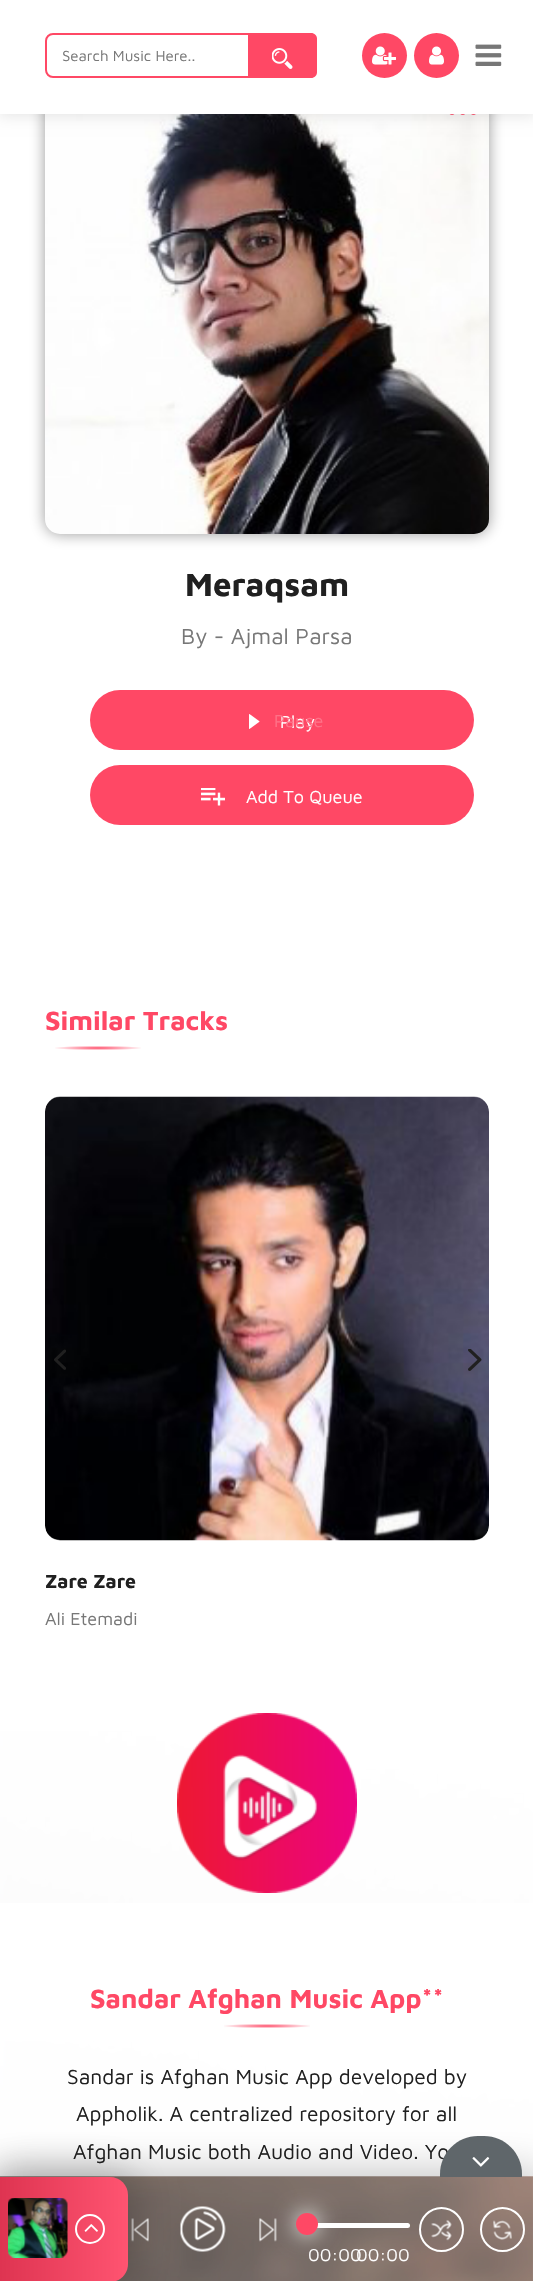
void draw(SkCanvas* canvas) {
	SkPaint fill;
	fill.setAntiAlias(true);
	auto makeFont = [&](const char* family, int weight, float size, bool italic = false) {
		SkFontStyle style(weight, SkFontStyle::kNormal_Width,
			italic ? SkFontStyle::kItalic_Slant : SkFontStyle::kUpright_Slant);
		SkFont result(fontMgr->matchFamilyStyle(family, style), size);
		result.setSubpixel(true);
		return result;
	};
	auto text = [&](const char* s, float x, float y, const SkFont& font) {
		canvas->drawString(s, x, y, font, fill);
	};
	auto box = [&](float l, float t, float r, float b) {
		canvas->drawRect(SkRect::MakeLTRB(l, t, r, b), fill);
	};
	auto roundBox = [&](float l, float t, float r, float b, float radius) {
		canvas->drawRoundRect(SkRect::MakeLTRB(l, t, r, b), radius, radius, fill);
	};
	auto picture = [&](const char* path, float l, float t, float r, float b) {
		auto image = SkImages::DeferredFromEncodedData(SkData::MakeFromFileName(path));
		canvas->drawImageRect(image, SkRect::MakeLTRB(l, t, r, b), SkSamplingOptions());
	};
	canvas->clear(0xFFFFFFFF);
	fill.setColor(0x66040404);
	fill.setMaskFilter(SkMaskFilter::MakeBlur(kNormal_SkBlurStyle, 7.5f));
	canvas->drawRoundRect(SkRect::MakeLTRB(45, 90, 489, 534), 15, 15, fill);
	fill.setMaskFilter(nullptr);
	picture("image4.png", 45, 114, 489, 534);
	picture("image5.png", 449, 114, 476, 115);
	fill.setColor(0x1A040404);
	fill.setMaskFilter(SkMaskFilter::MakeBlur(kNormal_SkBlurStyle, 7));
	canvas->drawRect(SkRect::MakeLTRB(-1, -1, 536, 116), fill);
	fill.setMaskFilter(nullptr);
	fill.setColor(0xFFFFFFFF);
	box(0, 0, 533, 114);
	fill.setStyle(SkPaint::kStroke_Style);
	fill.setStrokeWidth(2);
	fill.setColor(0xFFFF4865);
	canvas->drawRoundRect(SkRect::MakeLTRB(46, 34, 316, 77), 7, 7, fill);
	fill.setStyle(SkPaint::kFill_Style);
	canvas->drawPath(SkPathBuilder().moveTo(248, 33).lineTo(311, 33).cubicTo(314.5f, 33, 317, 35.5f, 317, 39).lineTo(317, 72).cubicTo(317, 75.5f, 314.5f, 78, 311, 78).lineTo(248, 78).close().detach(), fill);
	picture("image0.png", 272, 48, 293, 69);
	canvas->drawCircle(384.5f, 55.5f, 22.5f, fill);
	picture("image1.png", 372, 46, 396, 65);
	canvas->drawCircle(436.5f, 55.5f, 22.5f, fill);
	picture("image2.png", 429, 46, 444, 65);
	picture("image3.png", 475, 44, 502, 66);
	roundBox(90, 690, 474, 750, 30);
	picture("image6.png", 249, 714, 260, 729);
	roundBox(90, 765, 474, 825, 30);
	picture("image7.png", 201, 788, 225, 806);
	{
		const SkColor colors[] = {0xFFFF4865, 0xFFFFFFFF};
		const float stops[] = {0, 0.6f};
		SkMatrix m = SkMatrix::Translate(98, 1048).preScale(75, 3.8f);
		fill.setShader(SkGradientShader::MakeRadial({0, 0}, 1, colors, stops, 2, SkTileMode::kClamp, 0, &m));
		fill.setAlpha(255);
	}
	box(55, 1046, 141, 1050);
	picture("image10.png", 45, 1096, 489, 1541);
	picture("image8.png", 54, 1349, 66, 1370);
	picture("image9.png", 468, 1349, 482, 1371);
	picture("image11.png", 0, 1731, 533, 2281);
	picture("image12.png", 177, 1713, 357, 1893);
	{
		const SkColor colors[] = {0xFFFFFFFF, 0x00FFFFFF};
		const float stops[] = {0, 1};
		const SkPoint ends[] = {{267, 1638}, {267, 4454}};
		fill.setShader(SkGradientShader::MakeLinear(ends, colors, stops, 2, SkTileMode::kClamp));
		fill.setAlpha(255);
	}
	box(0, 1903, 533, 2281);
	{
		const SkColor colors[] = {0xFFFF4865, 0xFFFEFEFE};
		const float stops[] = {0, 0.6f};
		SkMatrix m = SkMatrix::Translate(267, 2026).preScale(75, 3.8f);
		fill.setShader(SkGradientShader::MakeRadial({0, 0}, 1, colors, stops, 2, SkTileMode::kClamp, 0, &m));
		fill.setAlpha(255);
	}
	box(224, 2024, 310, 2028);
	fill.setShader(nullptr);
	fill.setColor(0x33040404);
	fill.setMaskFilter(SkMaskFilter::MakeBlur(kNormal_SkBlurStyle, 18));
	canvas->drawRect(SkRect::MakeLTRB(-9, 2168, 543, 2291), fill);
	fill.setMaskFilter(nullptr);
	picture("image13.png", 0, 2176, 533, 2281);
	fill.setColor(0x4DDBDBDB);
	box(110, 2177, 533, 2281);
	picture("image17.png", 131, 2218, 149, 2242);
	picture("image18.png", 180, 2206, 226, 2252);
	fill.setColor(0x33040404);
	fill.setMaskFilter(SkMaskFilter::MakeBlur(kNormal_SkBlurStyle, 18));
	canvas->drawRoundRect(SkRect::MakeLTRB(-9, 2168, 137, 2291), 27, 27, fill);
	fill.setMaskFilter(nullptr);
	{
		const SkColor colors[] = {0xFFED3FB3, 0xFF3BC8E7, 0xFFFF5471, 0xFFDE3451};
		const float stops[] = {0, 0, 0, 1};
		const SkPoint ends[] = {{128, 2229}, {0, 2229}};
		fill.setShader(SkGradientShader::MakeLinear(ends, colors, stops, 4, SkTileMode::kClamp));
		fill.setAlpha(255);
	}
	canvas->drawPath(SkPathBuilder().moveTo(0, 2177).lineTo(110, 2177).cubicTo(120, 2177, 128, 2185, 128, 2195).lineTo(128, 2264).cubicTo(128, 2274, 120, 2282, 110, 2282).lineTo(0, 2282).close().detach(), fill);
	picture("image15.png", 8, 2198, 68, 2258);
	fill.setStyle(SkPaint::kStroke_Style);
	fill.setShader(nullptr);
	fill.setColor(0xFFFFFFFF);
	canvas->drawCircle(90, 2229, 14, fill);
	picture("image16.png", 84, 2224, 98, 2232);
	picture("image19.png", 259, 2218, 277, 2242);
	picture("image20.png", 431, 2220, 452, 2241);
	canvas->drawCircle(441.5f, 2229.5f, 21.5f, fill);
	picture("image21.png", 493, 2220, 512, 2240);
	canvas->drawCircle(502.5f, 2229.5f, 21.5f, fill);
	fill.setStyle(SkPaint::kFill_Style);
	roundBox(308, 2223, 410, 2228, 2.5f);
	fill.setMaskFilter(SkMaskFilter::MakeBlur(kNormal_SkBlurStyle, 11));
	canvas->drawRoundRect(SkRect::MakeLTRB(296, 2213, 318, 2235), 11, 11, fill);
	fill.setMaskFilter(nullptr);
	fill.setColor(0xFFFF4865);
	canvas->drawCircle(307, 2224, 11, fill);
	auto font1 = makeFont("Maven Pro", 400, 15);
	fill.setColor(0xFF777777);
	text("Search Music Here..", 62, 61, font1);
	auto font2 = makeFont("Maven Pro", 700, 33);
	fill.setColor(0xFF202020);
	text("Meraqsam", 185, 596, font2);
	auto font3 = makeFont("Maven Pro", 400, 22.5f);
	fill.setColor(0xFF777777);
	text("By - Ajmal Parsa", 181, 644, font3);
	auto font4 = makeFont("Maven Pro", 400, 18);
	fill.setColor(0xFFFFFFFF);
	text("Play", 280, 728, font4);
	fill.setColor(0xFFFF7187);
	text("Pause", 274, 727, font4);
	fill.setColor(0xFFFFFFFF);
	text("Add To Queue", 246, 803, font4);
	auto font5 = makeFont("Maven Pro", 700, 27);
	fill.setColor(0xFFFF4865);
	text("Similar Tracks", 45, 1030, font5);
	auto font6 = makeFont("Maven Pro", 700, 19.5f);
	fill.setColor(0xFF202020);
	text("Zare Zare", 45, 1588, font6);
	fill.setColor(0xFF777777);
	text("Ali Etemadi", 45, 1625, font4);
	fill.setColor(0xFFFF4865);
	text("Sandar Afghan Music App**", 90, 2008, font5);
	auto font7 = makeFont("Maven Pro", 400, 21);
	fill.setColor(0xFF202020);
	text("Sandar is Afghan Music App developed by", 67, 2084, font7);
	text("Appholik. A centralized repository for all", 76, 2121, font7);
	text("Afghan Music both Audio and Video. Yo", 73, 2159, font7);
	fill.setColor(0xFF5F666A);
	canvas->drawPath(SkPathBuilder().moveTo(478, 2136).lineTo(484, 2136).cubicTo(505, 2136, 522, 2153, 522, 2174).lineTo(522, 2177).lineTo(440, 2177).lineTo(440, 2174).cubicTo(440, 2153, 457, 2136, 478, 2136).close().detach(), fill);
	picture("image14.png", 472, 2157, 490, 2167);
	fill.setColor(0xFFFFFFFF);
	text("00:00", 308, 2261, font4);
	text("00:00", 356, 2261, font4);
}
